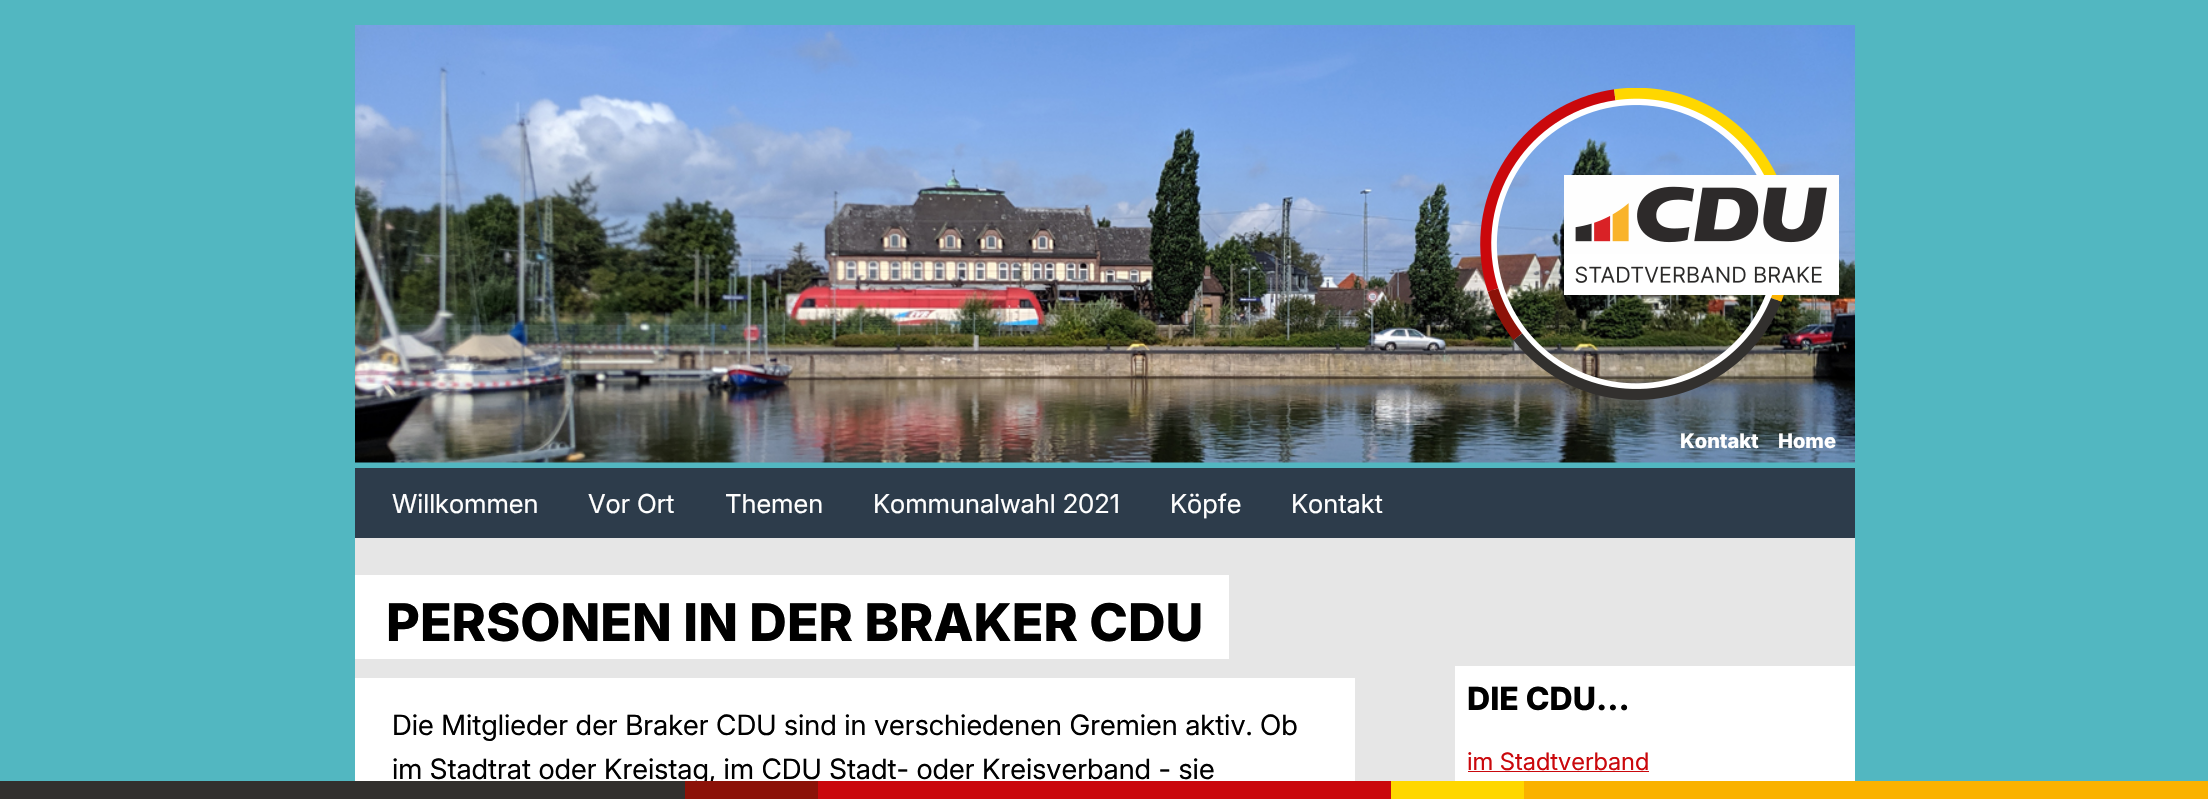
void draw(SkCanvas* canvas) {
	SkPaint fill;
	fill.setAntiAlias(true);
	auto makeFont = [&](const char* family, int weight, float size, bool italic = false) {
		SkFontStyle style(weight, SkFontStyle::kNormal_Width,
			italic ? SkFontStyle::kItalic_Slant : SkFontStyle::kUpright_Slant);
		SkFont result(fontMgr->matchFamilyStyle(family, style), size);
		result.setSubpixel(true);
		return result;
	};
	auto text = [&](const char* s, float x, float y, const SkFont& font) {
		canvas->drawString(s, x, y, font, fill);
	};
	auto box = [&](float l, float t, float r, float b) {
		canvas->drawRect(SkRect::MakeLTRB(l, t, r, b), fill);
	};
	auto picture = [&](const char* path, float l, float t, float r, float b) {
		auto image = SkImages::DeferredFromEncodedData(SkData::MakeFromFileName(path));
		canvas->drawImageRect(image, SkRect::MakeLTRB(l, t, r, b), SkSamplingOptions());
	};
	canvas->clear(0xFF52B7C1);
	picture("image0.png", 355, 25, 1855, 463);
	picture("image1.png", 1480, 88, 1784, 400);
	picture("image2.png", 1564, 175, 1839, 295);
	fill.setColor(0xFF2D3C4B);
	box(355, 468, 1855, 538);
	fill.setColor(0xFFE6E6E6);
	box(355, 538, 1855, 781);
	fill.setColor(0xFFFFFFFF);
	box(355, 575, 1229, 659);
	box(355, 678, 1355, 781);
	box(1455, 666, 1855, 781);
	fill.setColor(0xFFCA080C);
	box(1468, 771, 1649, 772);
	fill.setColor(0xFFFFD700);
	box(1391, 781, 1524, 799);
	fill.setColor(0xFFFAB200);
	box(1524, 781, 2208, 799);
	auto font1 = makeFont("Inter", 800, 20);
	fill.setColor(0xFFFFFFFF);
	text("Kontakt", 1680, 448, font1);
	text("Home", 1778, 448, font1);
	auto font2 = makeFont("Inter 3", 400, 26);
	text("Willkommen", 392, 513, font2);
	text("Vor Ort", 588, 513, font2);
	text("Themen", 725, 513, font2);
	text("Kommunalwahl 2021", 873, 513, font2);
	text("Köpfe", 1170, 513, font2);
	text("Kontakt", 1291, 513, font2);
	auto font3 = makeFont("Inter", 800, 52);
	fill.setColor(0xFF000000);
	text("PERSONEN IN DER BRAKER CDU", 386, 641, font3);
	auto font4 = makeFont("Inter", 400, 28);
	text("Die Mitglieder der Braker CDU sind in verschiedenen Gremien aktiv. Ob", 392, 735, font4);
	text("im Stadtrat oder Kreistag, im CDU Stadt- oder Kreisverband - sie", 392, 779, font4);
	auto font5 = makeFont("Inter", 800, 32);
	text("DIE CDU...", 1467, 710, font5);
	auto font6 = makeFont("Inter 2", 400, 24);
	fill.setColor(0xFFCA080C);
	text("im Stadtverband", 1467, 770, font6);
	fill.setColor(0xFF32302E);
	box(0, 781, 685, 799);
	fill.setColor(0xFF8C1208);
	box(685, 781, 818, 799);
	fill.setColor(0xFFCA080C);
	box(818, 781, 1391, 799);
}
